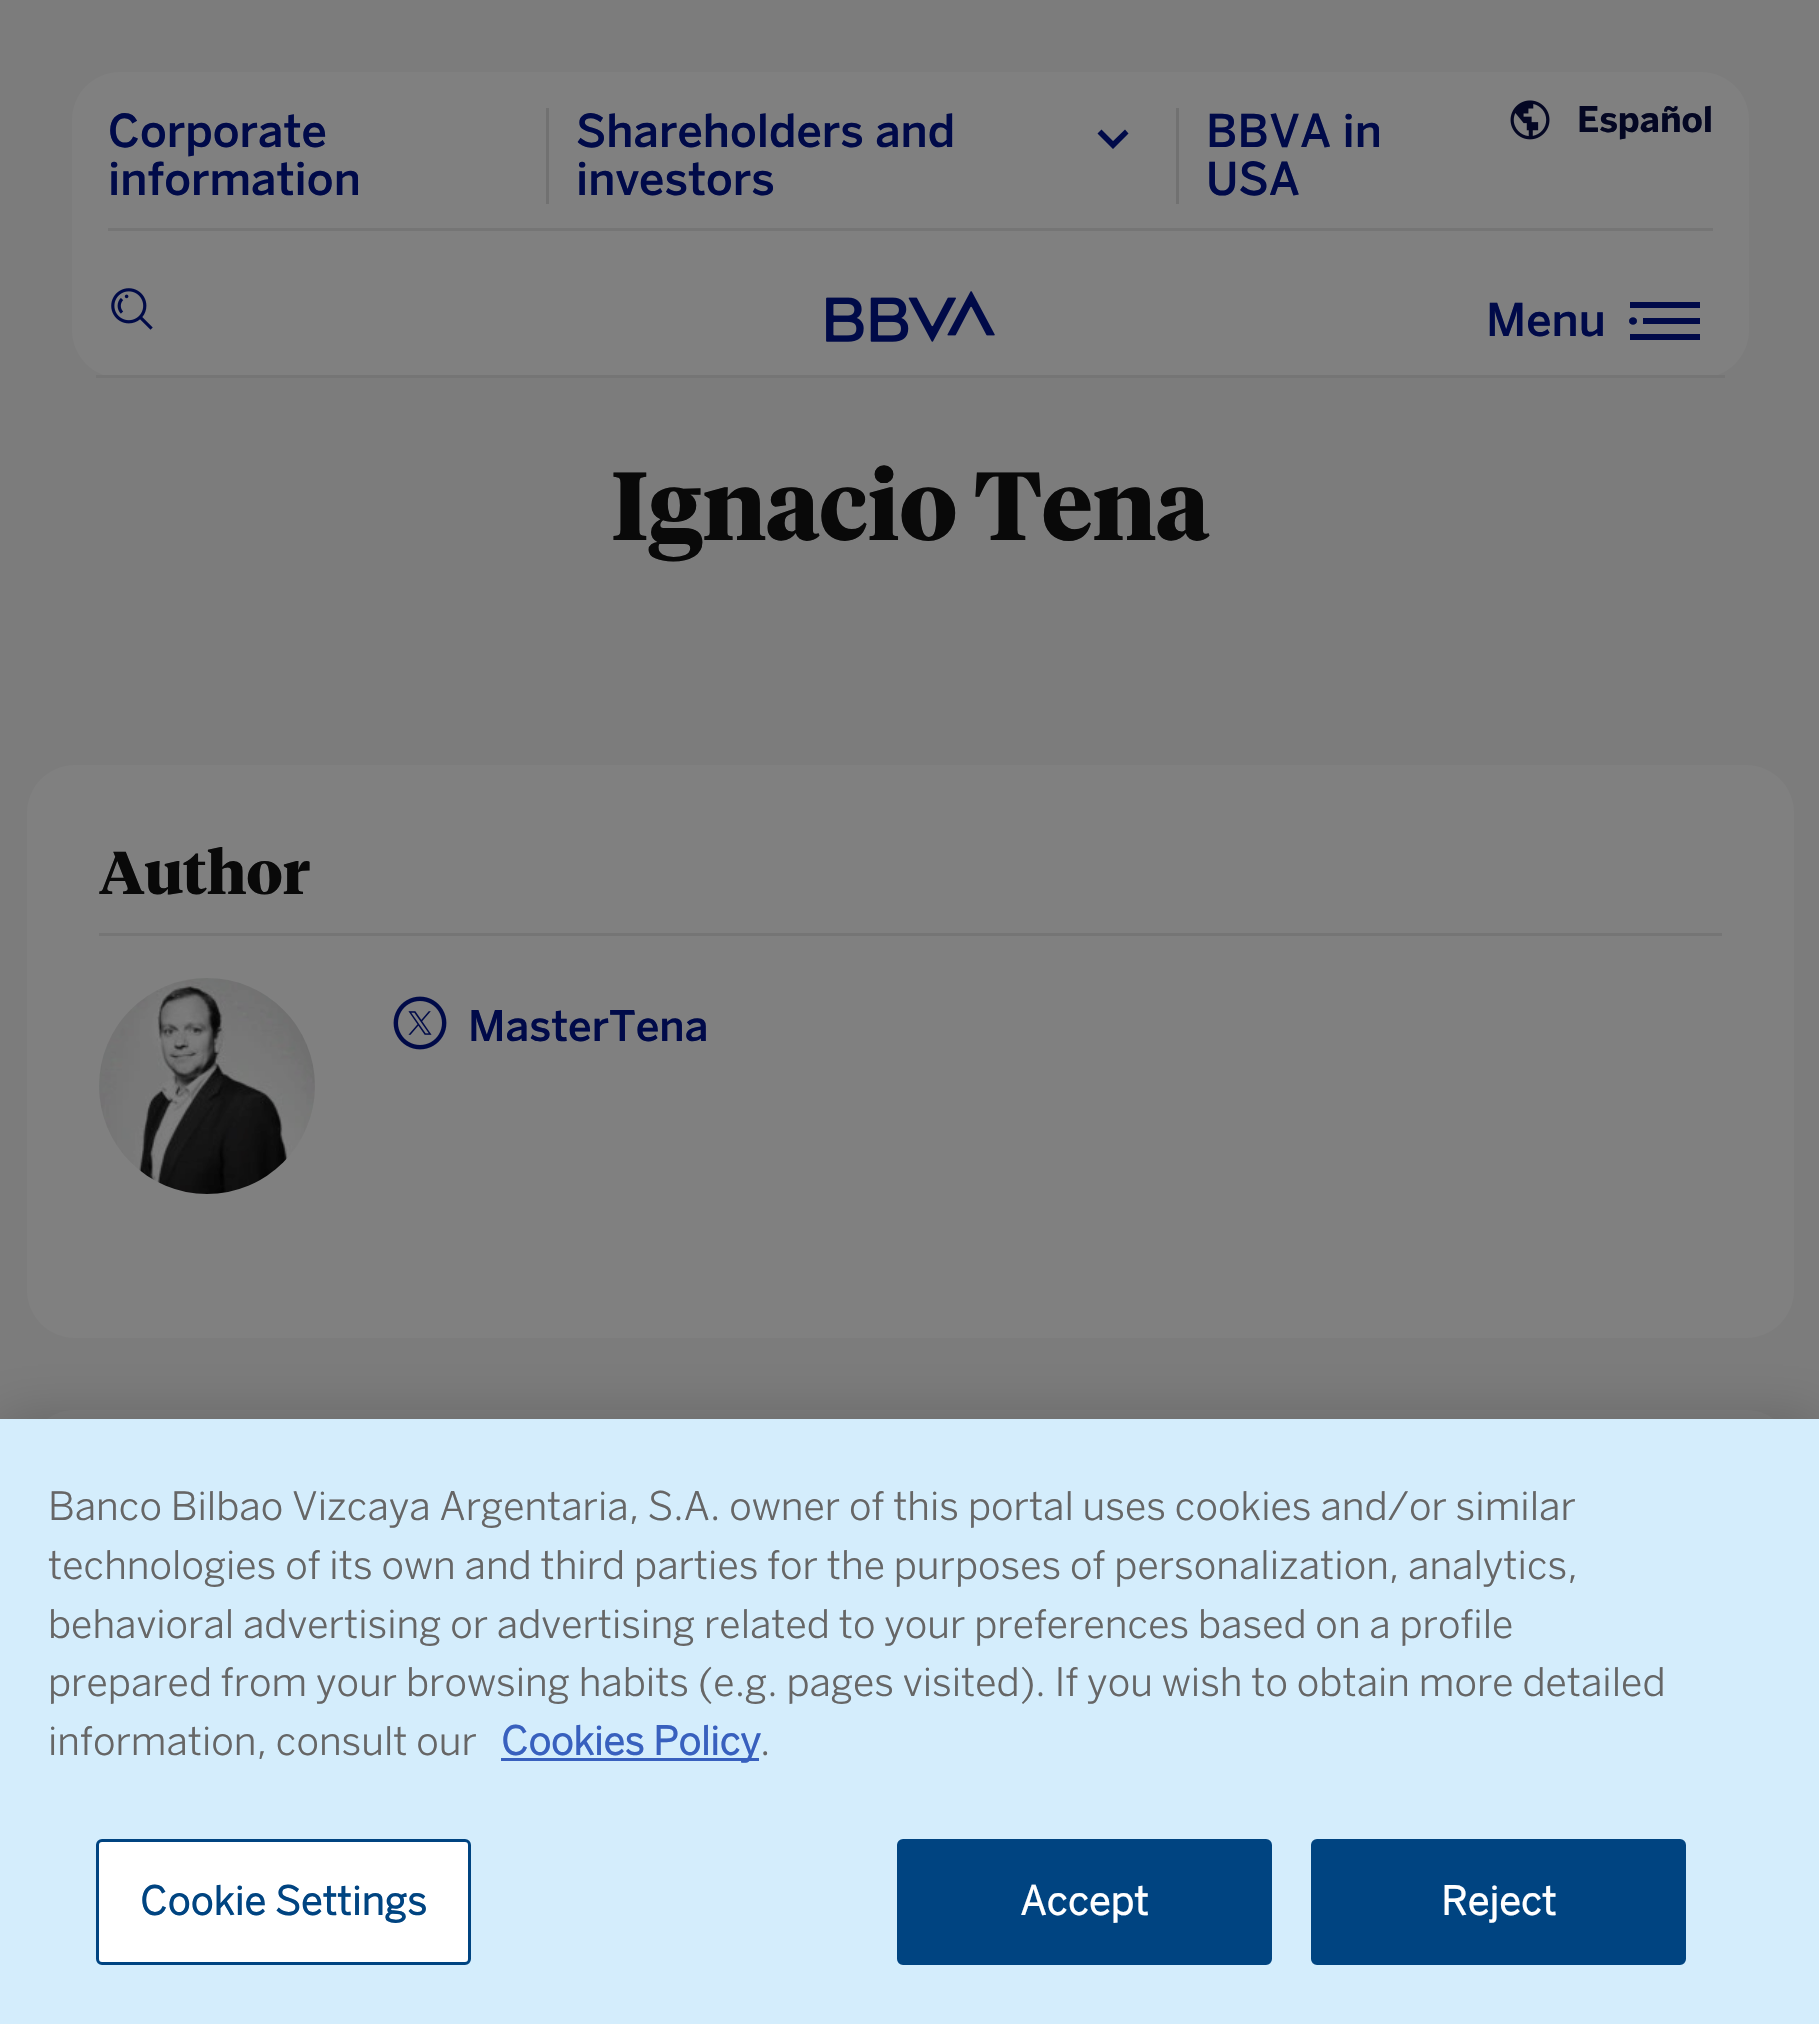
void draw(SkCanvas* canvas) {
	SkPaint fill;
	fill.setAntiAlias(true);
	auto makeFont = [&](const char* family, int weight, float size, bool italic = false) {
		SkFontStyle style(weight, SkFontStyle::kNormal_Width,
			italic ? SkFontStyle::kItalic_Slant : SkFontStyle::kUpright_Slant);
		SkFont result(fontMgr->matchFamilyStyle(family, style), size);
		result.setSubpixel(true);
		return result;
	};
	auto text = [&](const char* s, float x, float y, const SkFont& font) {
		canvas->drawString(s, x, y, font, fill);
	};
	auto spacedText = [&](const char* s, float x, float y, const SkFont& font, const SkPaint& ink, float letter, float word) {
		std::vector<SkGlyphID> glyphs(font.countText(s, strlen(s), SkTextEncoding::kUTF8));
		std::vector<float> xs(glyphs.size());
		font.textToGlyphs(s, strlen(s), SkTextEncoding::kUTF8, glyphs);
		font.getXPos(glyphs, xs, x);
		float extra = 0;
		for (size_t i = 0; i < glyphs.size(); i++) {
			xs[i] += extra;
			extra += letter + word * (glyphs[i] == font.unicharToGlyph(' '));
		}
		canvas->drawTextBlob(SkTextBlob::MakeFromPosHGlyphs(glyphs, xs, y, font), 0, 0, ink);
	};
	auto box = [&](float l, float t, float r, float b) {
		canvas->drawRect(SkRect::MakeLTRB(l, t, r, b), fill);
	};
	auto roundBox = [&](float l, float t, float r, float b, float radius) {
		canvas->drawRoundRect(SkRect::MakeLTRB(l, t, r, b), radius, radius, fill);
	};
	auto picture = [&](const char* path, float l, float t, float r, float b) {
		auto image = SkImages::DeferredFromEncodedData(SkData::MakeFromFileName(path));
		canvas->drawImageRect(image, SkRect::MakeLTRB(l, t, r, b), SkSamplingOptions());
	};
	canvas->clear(0xFF7C7C7C);
	fill.setColor(0xFF808080);
	roundBox(72, 72, 1749, 378, 48);
	fill.setColor(0xFF757575);
	box(96, 375, 1725, 378);
	box(108, 228, 1713, 231);
	fill.setColor(0xFF717171);
	box(546, 108, 549, 204);
	box(1176, 108, 1179, 204);
	fill.setColor(0xFF000A49);
	canvas->drawPath(SkPathBuilder().moveTo(1125, 129.5f).lineTo(1128.5f, 133.5f).lineTo(1113, 149).lineTo(1109, 145).close().moveTo(1101.5f, 129.5f).lineTo(1117, 145).lineTo(1113, 149).lineTo(1097.5f, 133.5f).close().detach(), fill);
	picture("image0.png", 1510, 100, 1550, 140);
	picture("image1.png", 826, 291, 995, 342);
	picture("image2.png", 111, 288, 153, 330);
	canvas->drawPath(SkPathBuilder().moveTo(1637, 321).cubicTo(1637, 326, 1629, 326, 1629, 321).cubicTo(1629, 316, 1637, 316, 1637, 321).close().moveTo(1700, 302).lineTo(1630, 302).lineTo(1630, 308).lineTo(1700, 308).close().moveTo(1700, 334).lineTo(1630, 334).lineTo(1630, 340).lineTo(1700, 340).close().moveTo(1700, 318).lineTo(1643, 318).lineTo(1643, 324).lineTo(1700, 324).close().detach(), fill);
	fill.setColor(0xFF808080);
	roundBox(27, 765, 1794, 1338, 48);
	fill.setColor(0xFF757575);
	box(99, 933, 1722, 936);
	picture("image3.png", 99, 978, 315, 1194);
	picture("image4.png", 393, 996, 447, 1050);
	fill.setColor(0xFF808080);
	roundBox(27, 1410, 1794, 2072, 48);
	fill.setColor(0x33000000);
	fill.setMaskFilter(SkMaskFilter::MakeBlur(kNormal_SkBlurStyle, 27));
	canvas->drawRect(SkRect::MakeLTRB(0, 1419, 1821, 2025), fill);
	fill.setMaskFilter(nullptr);
	fill.setColor(0xFFD4EDFC);
	box(0, 1419, 1819, 2024);
	fill.setColor(0xFF3860BE);
	box(501, 1758, 759, 1761);
	fill.setColor(0xFFFFFFFF);
	canvas->drawRoundRect(SkRect::MakeLTRB(97.5f, 1840.5f, 469.5f, 1963.5f), 4.5f, 4.5f, fill);
	fill.setStyle(SkPaint::kStroke_Style);
	fill.setStrokeWidth(3);
	fill.setColor(0xFF004481);
	canvas->drawRoundRect(SkRect::MakeLTRB(97.5f, 1840.5f, 469.5f, 1963.5f), 4.5f, 4.5f, fill);
	fill.setStyle(SkPaint::kFill_Style);
	canvas->drawRoundRect(SkRect::MakeLTRB(898.5f, 1840.5f, 1270.5f, 1963.5f), 4.5f, 4.5f, fill);
	fill.setStyle(SkPaint::kStroke_Style);
	canvas->drawRoundRect(SkRect::MakeLTRB(898.5f, 1840.5f, 1270.5f, 1963.5f), 4.5f, 4.5f, fill);
	fill.setStyle(SkPaint::kFill_Style);
	canvas->drawRoundRect(SkRect::MakeLTRB(1312.5f, 1840.5f, 1684.5f, 1963.5f), 4.5f, 4.5f, fill);
	fill.setStyle(SkPaint::kStroke_Style);
	canvas->drawRoundRect(SkRect::MakeLTRB(1312.5f, 1840.5f, 1684.5f, 1963.5f), 4.5f, 4.5f, fill);
	auto font1 = makeFont("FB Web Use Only", 500, 45);
	fill.setStyle(SkPaint::kFill_Style);
	fill.setColor(0xFF000A49);
	text("Corporate", 108, 147, font1);
	text("information", 108, 195, font1);
	text("Shareholders and", 576, 147, font1);
	text("investors", 576, 195, font1);
	text("BBVA in", 1206, 147, font1);
	text("USA", 1206, 195, font1);
	auto font2 = makeFont("FB Web Use Only", 700, 35);
	fill.setColor(0xFF040723);
	text("Español", 1577, 132, font2);
	fill.setColor(0xFF000A49);
	text("Menu", 1486, 336, font1);
	auto font3 = makeFont("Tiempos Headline", 700, 96);
	fill.setColor(0xFF090909);
	text("Ignacio Tena", 611, 540, font3);
	auto font4 = makeFont("Tiempos Headline", 700, 60);
	text("Author", 99, 894, font4);
	auto font5 = makeFont("FB Web Use Only", 500, 42);
	fill.setColor(0xFF000A49);
	text("MasterTena", 468, 1041, font5);
	auto font6 = makeFont("FB Web Use Only", 300, 39);
	fill.setColor(0xFF666666);
	text("Banco Bilbao Vizcaya Argentaria, S.A. owner of this portal uses cookies and/or similar", 48, 1520, font6);
	text("technologies of its own and third parties for the purposes of personalization, analytics,", 48, 1579, font6);
	text("behavioral advertising or advertising related to your preferences based on a profile", 48, 1638, font6);
	text("prepared from your browsing habits (e.g. pages visited). If you wish to obtain more detailed", 48, 1696, font6);
	text("information, consult our", 48, 1755, font6);
	auto font7 = makeFont("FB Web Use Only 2", 700, 39);
	fill.setColor(0xFF3860BE);
	text("Cookies Policy", 501, 1755, font7);
	fill.setColor(0xFF666666);
	text(".", 760, 1755, font6);
	fill.setColor(0xFF004481);
	spacedText("Cookie Settings", 140, 1915, font7, fill, 0.4f, 0);
	fill.setColor(0xFFFFFFFF);
	spacedText("Accept", 1020, 1915, font7, fill, 0.4f, 0);
	spacedText("Reject", 1441, 1915, font7, fill, 0.4f, 0);
}
